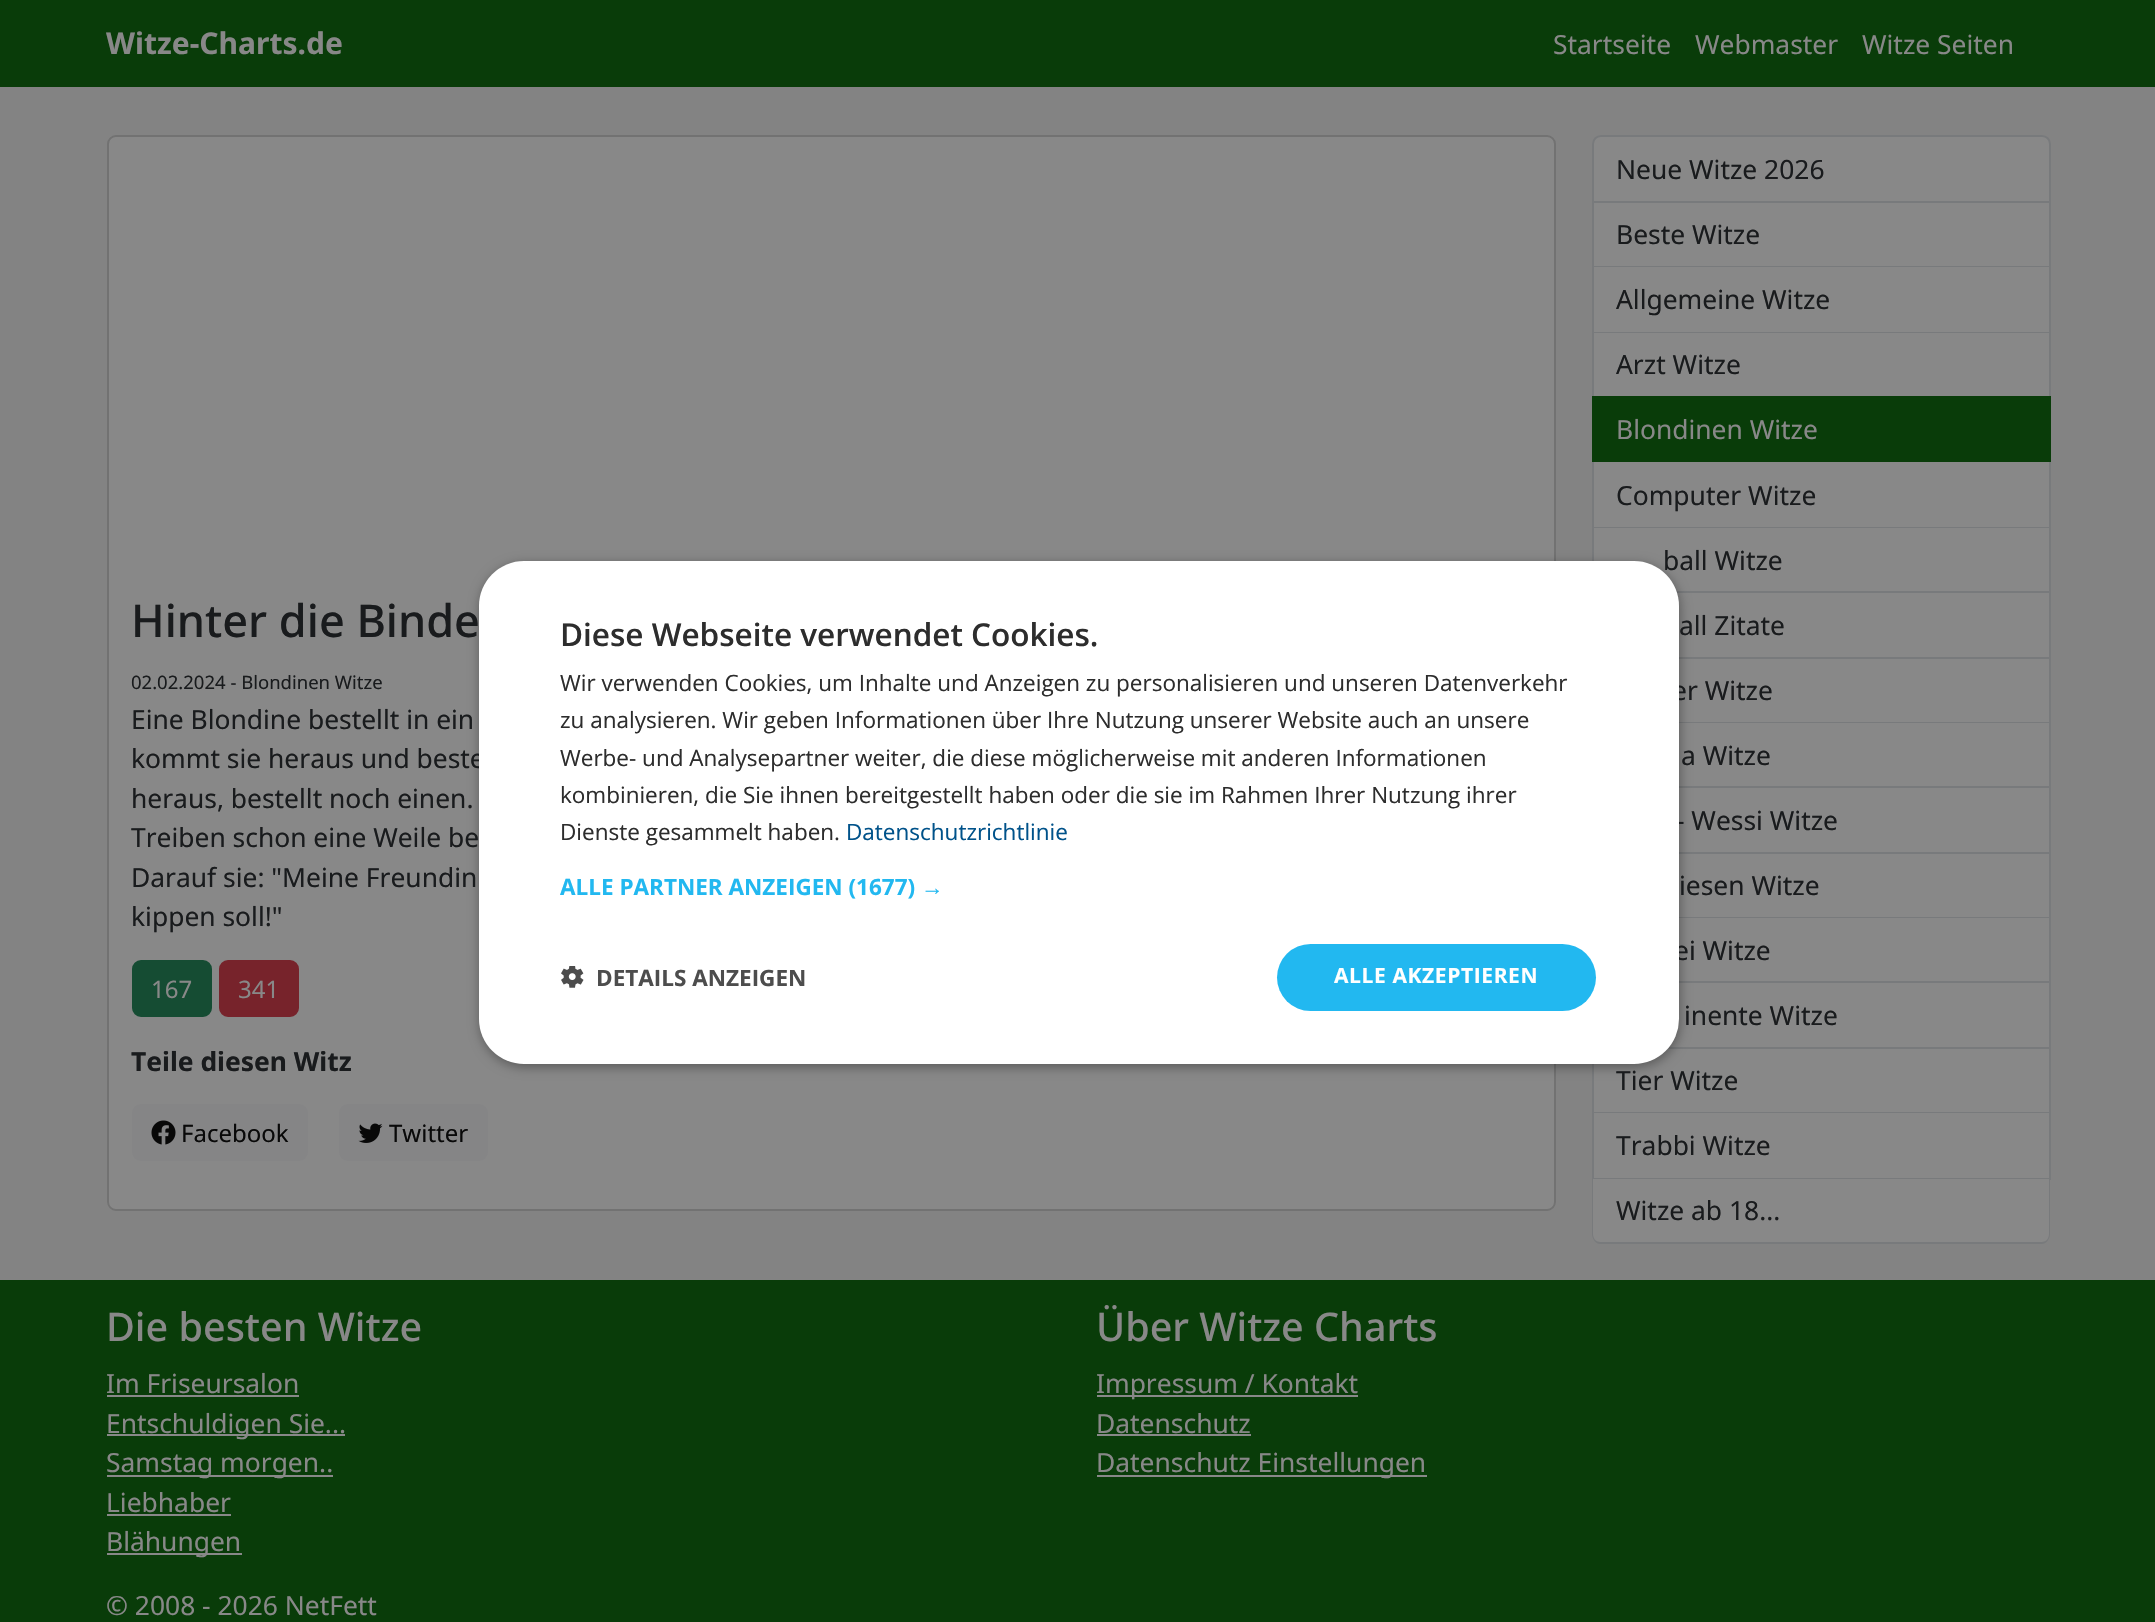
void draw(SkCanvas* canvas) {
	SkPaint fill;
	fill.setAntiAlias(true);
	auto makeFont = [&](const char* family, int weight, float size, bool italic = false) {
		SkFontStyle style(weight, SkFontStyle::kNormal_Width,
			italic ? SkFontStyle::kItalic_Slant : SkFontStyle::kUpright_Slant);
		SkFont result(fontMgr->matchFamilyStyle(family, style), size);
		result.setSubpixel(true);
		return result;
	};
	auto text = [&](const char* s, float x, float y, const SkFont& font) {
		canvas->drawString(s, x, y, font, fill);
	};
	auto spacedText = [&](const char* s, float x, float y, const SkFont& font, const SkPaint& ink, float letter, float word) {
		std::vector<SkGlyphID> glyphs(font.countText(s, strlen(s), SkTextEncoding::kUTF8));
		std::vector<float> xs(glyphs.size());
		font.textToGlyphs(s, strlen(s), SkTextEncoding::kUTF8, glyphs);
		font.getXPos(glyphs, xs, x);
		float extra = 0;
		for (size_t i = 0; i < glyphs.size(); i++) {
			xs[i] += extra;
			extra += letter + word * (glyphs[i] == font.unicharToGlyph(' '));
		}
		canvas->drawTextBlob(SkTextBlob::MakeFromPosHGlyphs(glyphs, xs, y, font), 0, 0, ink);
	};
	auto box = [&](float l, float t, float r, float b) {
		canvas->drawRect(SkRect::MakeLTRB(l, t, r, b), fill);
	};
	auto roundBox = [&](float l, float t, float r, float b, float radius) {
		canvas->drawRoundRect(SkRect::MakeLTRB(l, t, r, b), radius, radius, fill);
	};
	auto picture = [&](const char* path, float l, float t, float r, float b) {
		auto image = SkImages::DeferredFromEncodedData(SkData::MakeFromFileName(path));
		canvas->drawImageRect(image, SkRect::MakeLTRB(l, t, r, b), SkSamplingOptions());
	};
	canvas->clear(0xFF838383);
	fill.setColor(0xFF093C09);
	box(0, 0, 2155, 87);
	fill.setColor(0xFF888888);
	roundBox(107, 135, 1556, 1211, 9);
	fill.setStyle(SkPaint::kStroke_Style);
	fill.setStrokeWidth(2);
	fill.setColor(0x2E090909);
	canvas->drawRoundRect(SkRect::MakeLTRB(108, 136, 1555, 1210), 8, 8, fill);
	fill.setStyle(SkPaint::kFill_Style);
	fill.setColor(0xFF154C33);
	canvas->drawRoundRect(SkRect::MakeLTRB(133, 961, 211, 1016), 8, 8, fill);
	fill.setStyle(SkPaint::kStroke_Style);
	canvas->drawRoundRect(SkRect::MakeLTRB(133, 961, 211, 1016), 8, 8, fill);
	fill.setStyle(SkPaint::kFill_Style);
	fill.setColor(0xFF77232B);
	canvas->drawRoundRect(SkRect::MakeLTRB(220, 961, 298, 1016), 8, 8, fill);
	fill.setStyle(SkPaint::kStroke_Style);
	canvas->drawRoundRect(SkRect::MakeLTRB(220, 961, 298, 1016), 8, 8, fill);
	fill.setStyle(SkPaint::kFill_Style);
	fill.setColor(0xFF858586);
	roundBox(132, 1104, 308, 1161, 9);
	picture("image0.png", 151, 1120, 176, 1145);
	roundBox(339, 1104, 488, 1161, 9);
	picture("image1.png", 358, 1123, 383, 1143);
	fill.setColor(0xFF888888);
	canvas->drawPath(SkPathBuilder().moveTo(1601, 136).lineTo(2042, 136).cubicTo(2046.5f, 136, 2050, 139.5f, 2050, 144).lineTo(2050, 202).lineTo(1593, 202).lineTo(1593, 144).cubicTo(1593, 139.5f, 1596.5f, 136, 1601, 136).close().detach(), fill);
	fill.setStyle(SkPaint::kStroke_Style);
	fill.setColor(0xFF787A7C);
	canvas->drawPath(SkPathBuilder().moveTo(1601, 136).lineTo(2042, 136).cubicTo(2046.5f, 136, 2050, 139.5f, 2050, 144).lineTo(2050, 202).lineTo(1593, 202).lineTo(1593, 144).cubicTo(1593, 139.5f, 1596.5f, 136, 1601, 136).close().detach(), fill);
	fill.setStyle(SkPaint::kFill_Style);
	fill.setColor(0xFF888888);
	box(1594, 203, 2049, 266);
	fill.setColor(0xFF787A7C);
	box(2049, 203, 2051, 398);
	box(1592, 266, 2051, 267);
	box(1592, 203, 1594, 267);
	fill.setColor(0xFF888888);
	box(1594, 267, 2049, 332);
	fill.setColor(0xFF787A7C);
	box(1592, 332, 2051, 333);
	box(1592, 267, 1594, 398);
	fill.setColor(0xFF888888);
	box(1594, 333, 2049, 396);
	fill.setColor(0xFF093C09);
	box(1592, 396, 2051, 462);
	fill.setColor(0xFF888888);
	box(1594, 462, 2049, 527);
	fill.setColor(0xFF787A7C);
	box(2049, 462, 2051, 1179);
	box(1592, 527, 2051, 528);
	box(1592, 462, 1594, 561);
	fill.setColor(0xFF888888);
	box(1594, 528, 2049, 591);
	fill.setColor(0xFF787A7C);
	box(1676, 591, 2051, 593);
	fill.setColor(0xFF888888);
	box(1677, 593, 2049, 657);
	fill.setColor(0xFF787A7C);
	box(1679, 657, 2051, 659);
	fill.setColor(0xFF888888);
	box(1679, 659, 2049, 722);
	fill.setColor(0xFF787A7C);
	box(1679, 722, 2051, 723);
	fill.setColor(0xFF888888);
	box(1679, 723, 2049, 786);
	fill.setColor(0xFF787A7C);
	box(1679, 786, 2051, 788);
	fill.setColor(0xFF888888);
	box(1679, 788, 2049, 852);
	fill.setColor(0xFF787A7C);
	box(1679, 852, 2051, 854);
	fill.setColor(0xFF888888);
	box(1679, 854, 2049, 917);
	fill.setColor(0xFF787A7C);
	box(1679, 917, 2051, 918);
	fill.setColor(0xFF888888);
	box(1679, 918, 2049, 981);
	fill.setColor(0xFF787A7C);
	box(1679, 981, 2051, 983);
	fill.setColor(0xFF888888);
	box(1669, 983, 2049, 1047);
	fill.setColor(0xFF787A7C);
	box(1667, 1047, 2051, 1049);
	fill.setColor(0xFF888888);
	box(1594, 1049, 2049, 1112);
	fill.setColor(0xFF787A7C);
	box(1592, 1112, 2051, 1113);
	box(1592, 1064, 1594, 1113);
	fill.setColor(0xFF888888);
	box(1594, 1113, 2049, 1178);
	fill.setColor(0xFF787A7C);
	box(1592, 1178, 2051, 1180);
	box(1592, 1113, 1594, 1179);
	fill.setColor(0xFF888888);
	canvas->drawPath(SkPathBuilder().moveTo(1593, 1179).lineTo(2049, 1179).lineTo(2049, 1234).cubicTo(2049, 1238.5f, 2045.5f, 1242, 2041, 1242).lineTo(1601, 1242).cubicTo(1596.5f, 1242, 1593, 1238.5f, 1593, 1234).close().detach(), fill);
	fill.setColor(0xFF787A7C);
	canvas->drawPath(SkPathBuilder(SkPathFillType::kEvenOdd).moveTo(1592, 1179).lineTo(2050, 1179).lineTo(2050, 1234).cubicTo(2050, 1239, 2046, 1244, 2042, 1244).lineTo(1600, 1244).cubicTo(1596, 1244, 1592, 1239, 1592, 1234).close().moveTo(1593, 1179).lineTo(2049, 1179).lineTo(2049, 1234).cubicTo(2049, 1239, 2046, 1242, 2042, 1242).lineTo(1600, 1242).cubicTo(1596, 1242, 1593, 1239, 1593, 1234).close().detach(), fill);
	fill.setColor(0x59000000);
	fill.setMaskFilter(SkMaskFilter::MakeBlur(kNormal_SkBlurStyle, 6));
	canvas->drawRoundRect(SkRect::MakeLTRB(480, 564, 1680, 1067), 45, 45, fill);
	fill.setMaskFilter(nullptr);
	fill.setColor(0xFF093C09);
	box(0, 1280, 2155, 1622);
	fill.setColor(0xFF888888);
	box(107, 1395, 299, 1397);
	box(107, 1434, 345, 1436);
	box(107, 1475, 333, 1477);
	box(107, 1514, 231, 1516);
	box(107, 1553, 242, 1555);
	box(1097, 1395, 1358, 1397);
	box(1097, 1434, 1251, 1436);
	box(1097, 1475, 1427, 1477);
	auto font1 = makeFont("Noto Sans", 700, 30);
	text("Witze-Charts.de", 106, 54, font1);
	auto font2 = makeFont("Noto Sans", 400, 26.4f);
	text("Startseite", 1553, 54, font2);
	text("Webmaster", 1695, 54, font2);
	text("Witze Seiten", 1862, 54, font2);
	auto font3 = makeFont("Noto Sans", 500, 45);
	fill.setColor(0xFF191B1D);
	text("Hinter die Binde", 131, 637, font3);
	auto font4 = makeFont("Noto Sans", 400, 18.5f);
	text("02.02.2024 - Blondinen Witze", 131, 689, font4);
	text("Eine Blondine bestellt in ein", 131, 729, font2);
	text("kommt sie heraus und beste", 131, 768, font2);
	text("heraus, bestellt noch einen.", 131, 808, font2);
	text("Treiben schon eine Weile be", 131, 847, font2);
	text("Darauf sie: \"Meine Freundin", 131, 887, font2);
	text("kippen soll!\"", 131, 926, font2);
	auto font5 = makeFont("Noto Sans", 400, 24);
	fill.setColor(0xFF888888);
	text("167", 151, 998, font5);
	text("341", 238, 998, font5);
	auto font6 = makeFont("Noto Sans", 700, 26.4f);
	fill.setColor(0xFF191B1D);
	text("Teile diesen Witz", 131, 1071, font6);
	fill.setColor(0xFF090909);
	text("Facebook", 181, 1142, font5);
	text("Twitter", 389, 1142, font5);
	fill.setColor(0xFF191B1D);
	text("Neue Witze 2026", 1616, 179, font2);
	text("Beste Witze", 1616, 244, font2);
	text("Allgemeine Witze", 1616, 309, font2);
	text("Arzt Witze", 1616, 374, font2);
	fill.setColor(0xFF888888);
	text("Blondinen Witze", 1616, 439, font2);
	fill.setColor(0xFF191B1D);
	text("Computer Witze", 1616, 505, font2);
	text("ball Witze", 1663, 570, font2);
	text("all Zitate", 1679, 635, font2);
	text("er Witze", 1672, 700, font2);
	text("a Witze", 1681, 765, font2);
	text("- Wessi Witze", 1676, 830, font2);
	text("iesen Witze", 1679, 895, font2);
	text("ei Witze", 1674, 960, font2);
	text("inente Witze", 1684, 1025, font2);
	text("Tier Witze", 1616, 1090, font2);
	text("Trabbi Witze", 1616, 1155, font2);
	text("Witze ab 18...", 1616, 1220, font2);
	fill.setColor(0xFFFFFFFF);
	roundBox(479, 561, 1679, 1064, 45);
	auto font7 = makeFont("Open Sans", 600, 31.5f);
	fill.setColor(0xFF2D2D2D);
	text("Diese Webseite verwendet Cookies.", 560, 646, font7);
	auto font8 = makeFont("Open Sans", 400, 22.5f);
	text("Wir verwenden Cookies, um Inhalte und Anzeigen zu personalisieren und unseren Datenverkehr", 560, 691, font8);
	text("zu analysieren. Wir geben Informationen über Ihre Nutzung unserer Website auch an unsere", 560, 728, font8);
	text("Werbe- und Analysepartner weiter, die diese möglicherweise mit anderen Informationen", 560, 766, font8);
	text("kombinieren, die Sie ihnen bereitgestellt haben oder die sie im Rahmen Ihrer Nutzung ihrer", 560, 803, font8);
	text("Dienste gesammelt haben.", 560, 840, font8);
	fill.setColor(0xFF00528A);
	text("Datenschutzrichtlinie", 846, 840, font8);
	auto font9 = makeFont("Open Sans", 700, 22.5f);
	fill.setColor(0xFF22B8F0);
	text("ALLE PARTNER ANZEIGEN (1677)", 560, 895, font9);
	auto font10 = makeFont("Liberation Sans", 700, 22.5f);
	text("→", 921, 895, font10);
	picture("image2.png", 561, 966, 584, 988);
	fill.setColor(0xFF4D4D4D);
	text("DETAILS ANZEIGEN", 596, 986, font9);
	fill.setColor(0xFF22B8F0);
	roundBox(1277, 944, 1596, 1011, 33.5f);
	auto font11 = makeFont("Open Sans", 700, 21);
	fill.setColor(0xFFFFFFFF);
	spacedText("ALLE AKZEPTIEREN", 1334, 983, font11, fill, 0.6f, 0);
	auto font12 = makeFont("Noto Sans", 500, 39.5f);
	fill.setColor(0xFF888888);
	text("Die besten Witze", 106, 1341, font12);
	text("Im Friseursalon", 106, 1393, font2);
	text("Entschuldigen Sie...", 106, 1433, font2);
	text("Samstag morgen..", 106, 1472, font2);
	text("Liebhaber", 106, 1512, font2);
	text("Blähungen", 106, 1551, font2);
	text("Über Witze Charts", 1096, 1341, font12);
	text("Impressum / Kontakt", 1096, 1393, font2);
	text("Datenschutz", 1096, 1433, font2);
	text("Datenschutz Einstellungen", 1096, 1472, font2);
	text("© 2008 - 2026 NetFett", 106, 1615, font2);
}
